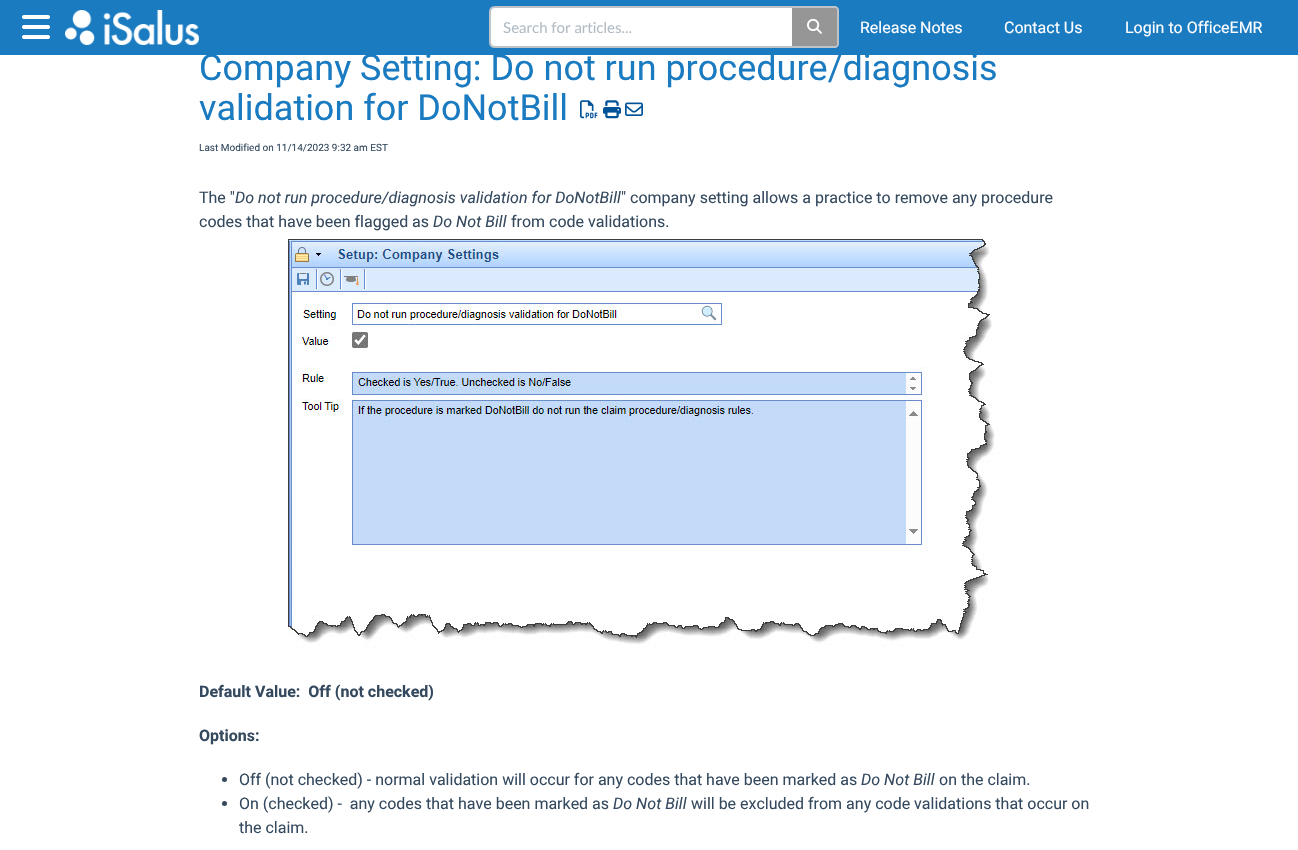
void draw(SkCanvas* canvas) {
	SkPaint fill;
	fill.setAntiAlias(true);
	auto makeFont = [&](const char* family, int weight, float size, bool italic = false) {
		SkFontStyle style(weight, SkFontStyle::kNormal_Width,
			italic ? SkFontStyle::kItalic_Slant : SkFontStyle::kUpright_Slant);
		SkFont result(fontMgr->matchFamilyStyle(family, style), size);
		result.setSubpixel(true);
		return result;
	};
	auto text = [&](const char* s, float x, float y, const SkFont& font) {
		canvas->drawString(s, x, y, font, fill);
	};
	auto box = [&](float l, float t, float r, float b) {
		canvas->drawRect(SkRect::MakeLTRB(l, t, r, b), fill);
	};
	auto picture = [&](const char* path, float l, float t, float r, float b) {
		auto image = SkImages::DeferredFromEncodedData(SkData::MakeFromFileName(path));
		canvas->drawImageRect(image, SkRect::MakeLTRB(l, t, r, b), SkSamplingOptions());
	};
	canvas->clear(0xFFFFFFFF);
	fill.setColor(0xFF1A7BC1);
	box(0, 0, 1298, 55);
	picture("image0.png", 22, 15, 50, 39);
	picture("image1.png", 65, 10, 199, 45);
	fill.setColor(0xFFFFFFFF);
	canvas->drawPath(SkPathBuilder().moveTo(495, 7).lineTo(794, 7).lineTo(794, 47).lineTo(495, 47).cubicTo(492, 47, 490, 45, 490, 42).lineTo(490, 12).cubicTo(490, 9, 492, 7, 495, 7).close().detach(), fill);
	fill.setStyle(SkPaint::kStroke_Style);
	fill.setStrokeWidth(2);
	fill.setColor(0xFFBDC3C7);
	canvas->drawPath(SkPathBuilder().moveTo(495, 7).lineTo(794, 7).lineTo(794, 47).lineTo(495, 47).cubicTo(492, 47, 490, 45, 490, 42).lineTo(490, 12).cubicTo(490, 9, 492, 7, 495, 7).close().detach(), fill);
	fill.setStyle(SkPaint::kFill_Style);
	fill.setColor(0xFF969696);
	canvas->drawPath(SkPathBuilder().moveTo(792, 8).lineTo(835, 8).cubicTo(836, 8, 837, 9, 837, 10).lineTo(837, 44).cubicTo(837, 45, 836, 46, 835, 46).lineTo(792, 46).close().detach(), fill);
	fill.setColor(0xFFBDC3C7);
	canvas->drawPath(SkPathBuilder(SkPathFillType::kEvenOdd).moveTo(792, 6).lineTo(835, 6).cubicTo(837, 6, 839, 8, 839, 10).lineTo(839, 44).cubicTo(839, 46, 837, 48, 835, 48).lineTo(792, 48).close().moveTo(792, 8).lineTo(835, 8).cubicTo(836, 8, 837, 9, 837, 10).lineTo(837, 44).cubicTo(837, 45, 836, 46, 835, 46).lineTo(792, 46).close().detach(), fill);
	picture("image2.png", 807, 18, 822, 34);
	picture("image3.png", 580, 100, 598, 119);
	picture("image4.png", 603, 100, 621, 119);
	picture("image5.png", 625, 102, 643, 116);
	picture("image6.png", 288, 239, 1000, 647);
	fill.setColor(0xFF34495E);
	canvas->drawCircle(224.5f, 779.5f, 2.5f, fill);
	canvas->drawCircle(224.5f, 803.5f, 2.5f, fill);
	auto font1 = makeFont("Lato", 400, 15);
	fill.setColor(0xFFB2BCC5);
	text("Search for articles...", 503, 33, font1);
	auto font2 = makeFont("Roboto", 400, 16);
	fill.setColor(0xFFFFFFFF);
	text("Release Notes", 860, 33, font2);
	text("Contact Us", 1004, 33, font2);
	text("Login to OfficeEMR", 1125, 33, font2);
	auto font3 = makeFont("Roboto", 400, 36);
	fill.setColor(0xFF1A7BC1);
	text("Company Setting: Do not run procedure/diagnosis", 199, 80, font3);
	text("validation for DoNotBill", 199, 120, font3);
	auto font4 = makeFont("Roboto", 400, 10);
	fill.setColor(0xFF34495E);
	text("Last Modified on 11/14/2023 9:32 am EST", 199, 151, font4);
	text("The \"", 199, 203, font2);
	auto font5 = makeFont("Roboto", 400, 16, true);
	text("Do not run procedure/diagnosis validation for DoNotBill", 235, 203, font5);
	text("\" company setting allows a practice to remove any procedure", 621, 203, font2);
	text("codes that have been flagged as", 199, 227, font2);
	text("Do Not Bill", 433, 227, font5);
	text("from code validations.", 511, 227, font2);
	auto font6 = makeFont("Roboto", 700, 16);
	text("Default Value:  Off (not checked)", 199, 697, font6);
	text("Options:", 199, 741, font6);
	text("Off (not checked) - normal validation will occur for any codes that have been marked as", 239, 785, font2);
	text("Do Not Bill", 861, 785, font5);
	text("on the claim.", 939, 785, font2);
	text("On (checked) -  any codes that have been marked as", 239, 809, font2);
	text("Do Not Bill", 613, 809, font5);
	text("will be excluded from any code validations that occur on", 691, 809, font2);
	text("the claim.", 239, 833, font2);
}
